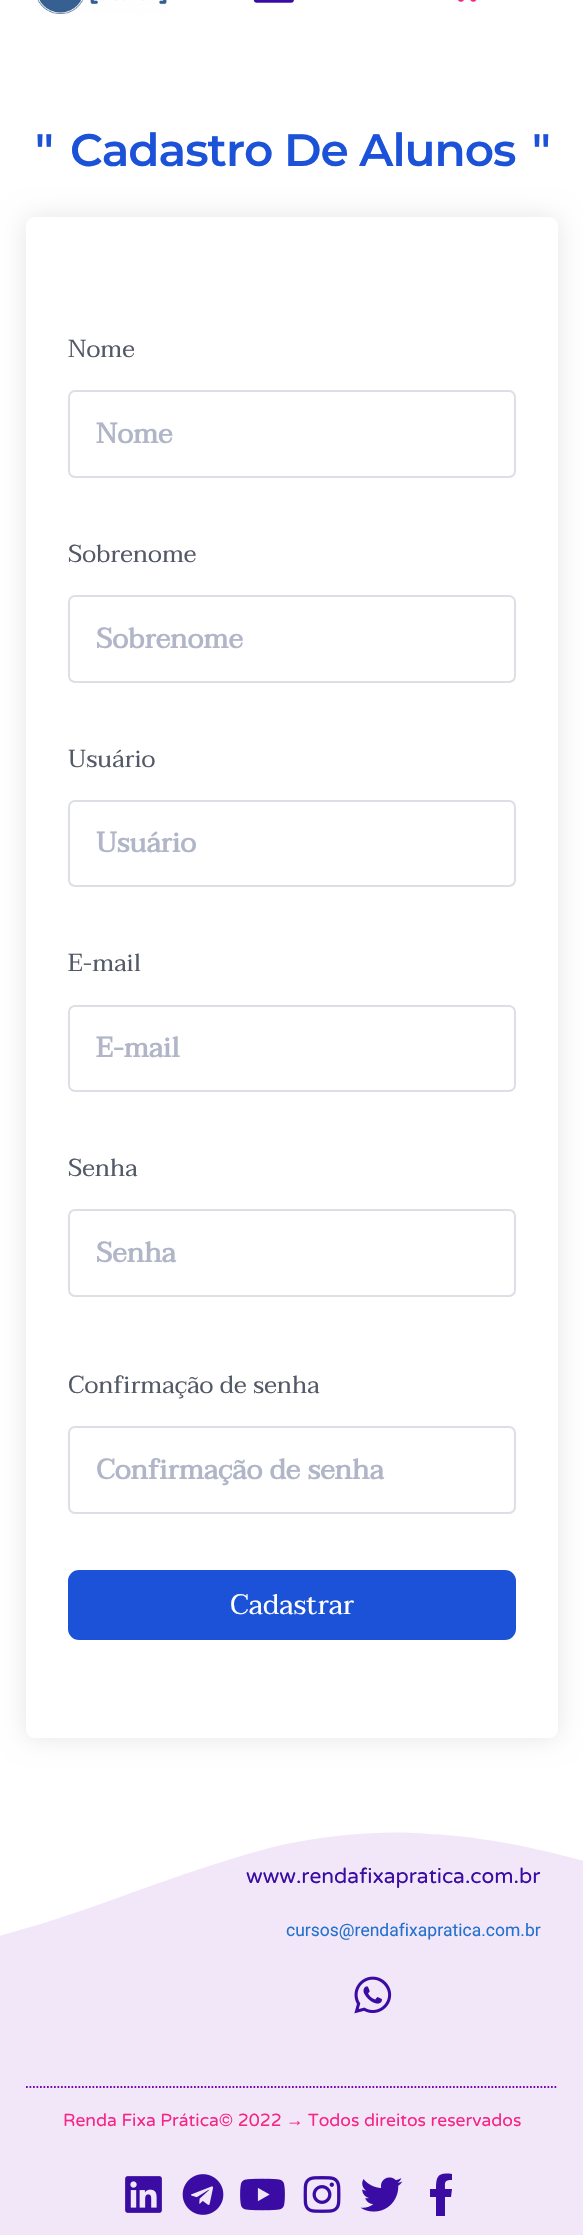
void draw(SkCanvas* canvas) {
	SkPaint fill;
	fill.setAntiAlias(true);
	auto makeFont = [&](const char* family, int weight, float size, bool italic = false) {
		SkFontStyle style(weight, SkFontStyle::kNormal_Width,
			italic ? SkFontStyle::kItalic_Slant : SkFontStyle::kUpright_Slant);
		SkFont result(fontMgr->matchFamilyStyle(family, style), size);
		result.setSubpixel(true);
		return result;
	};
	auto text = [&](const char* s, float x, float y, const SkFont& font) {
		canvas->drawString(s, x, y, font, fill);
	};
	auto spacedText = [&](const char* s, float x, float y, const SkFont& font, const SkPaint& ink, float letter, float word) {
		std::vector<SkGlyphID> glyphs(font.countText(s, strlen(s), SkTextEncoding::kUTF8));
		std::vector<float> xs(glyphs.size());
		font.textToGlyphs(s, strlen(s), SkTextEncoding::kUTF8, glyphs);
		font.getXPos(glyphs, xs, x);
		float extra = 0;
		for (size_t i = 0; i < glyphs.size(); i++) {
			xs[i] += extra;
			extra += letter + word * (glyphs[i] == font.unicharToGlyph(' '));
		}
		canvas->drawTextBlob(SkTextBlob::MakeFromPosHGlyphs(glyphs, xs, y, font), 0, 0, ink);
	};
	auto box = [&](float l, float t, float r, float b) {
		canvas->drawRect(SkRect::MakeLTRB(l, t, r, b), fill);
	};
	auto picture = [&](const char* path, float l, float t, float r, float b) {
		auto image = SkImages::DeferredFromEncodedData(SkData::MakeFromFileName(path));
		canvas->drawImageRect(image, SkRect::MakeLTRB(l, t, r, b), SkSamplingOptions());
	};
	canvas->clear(0xFFFFFFFF);
	picture("image0.png", 37, 0, 167, 14);
	picture("image1.png", 253, 0, 294, 3);
	picture("image2.png", 458, 0, 477, 2);
	canvas->save();
	canvas->clipPath(SkPathBuilder(SkPathFillType::kEvenOdd).moveTo(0, 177).lineTo(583, 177).lineTo(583, 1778).lineTo(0, 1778).close().moveTo(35, 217).lineTo(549, 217).cubicTo(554, 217, 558, 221, 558, 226).lineTo(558, 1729).cubicTo(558, 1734, 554, 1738, 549, 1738).lineTo(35, 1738).cubicTo(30, 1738, 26, 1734, 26, 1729).lineTo(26, 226).cubicTo(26, 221, 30, 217, 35, 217).close().detach(), true);
	fill.setColor(0x1A000000);
	fill.setMaskFilter(SkMaskFilter::MakeBlur(kNormal_SkBlurStyle, 13));
	canvas->drawRoundRect(SkRect::MakeLTRB(26, 217, 558, 1738), 9, 9, fill);
	fill.setMaskFilter(nullptr);
	canvas->restore();
	fill.setStyle(SkPaint::kStroke_Style);
	fill.setStrokeWidth(2);
	fill.setColor(0xFFDCDFE5);
	canvas->drawRoundRect(SkRect::MakeLTRB(69, 391, 515, 477), 6, 6, fill);
	canvas->drawRoundRect(SkRect::MakeLTRB(69, 596, 515, 682), 6, 6, fill);
	canvas->drawRoundRect(SkRect::MakeLTRB(69, 801, 515, 886), 6, 6, fill);
	canvas->drawRoundRect(SkRect::MakeLTRB(69, 1006, 515, 1091), 6, 6, fill);
	canvas->drawRoundRect(SkRect::MakeLTRB(69, 1210, 515, 1296), 6, 6, fill);
	canvas->drawRoundRect(SkRect::MakeLTRB(69, 1427, 515, 1513), 6, 6, fill);
	fill.setStyle(SkPaint::kFill_Style);
	fill.setColor(0xFF1B52D8);
	canvas->drawRoundRect(SkRect::MakeLTRB(69, 1571, 515, 1639), 10, 10, fill);
	fill.setStyle(SkPaint::kStroke_Style);
	canvas->drawRoundRect(SkRect::MakeLTRB(69, 1571, 515, 1639), 10, 10, fill);
	fill.setStyle(SkPaint::kFill_Style);
	fill.setColor(0xFFF2E7F8);
	box(0, 1832, 583, 2235);
	fill.setColor(0xFFFFFFFF);
	canvas->drawPath(SkPathBuilder().moveTo(429, 1834).cubicTo(390, 1830, 339, 1834, 297, 1842).cubicTo(255, 1849, 172, 1878, 120, 1897).cubicTo(-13, 1946, -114, 1965, -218, 1973).cubicTo(-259, 1976, -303, 1979, -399, 1969).cubicTo(-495, 1960, -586, 1930, -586, 1930).lineTo(-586, 1824).lineTo(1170, 1824).lineTo(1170, 1870).cubicTo(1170, 1870, 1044, 1920, 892, 1917).cubicTo(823, 1916, 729, 1907, 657, 1883).cubicTo(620, 1870, 565, 1855, 517, 1845).cubicTo(469, 1836, 447, 1835, 429, 1834).close().detach(), fill);
	fill.setStyle(SkPaint::kStroke_Style);
	fill.setStrokeWidth(1.8f);
	fill.setColor(0xFF7209B7);
	fill.setPathEffect(SkDashPathEffect::Make({{1.75f, 1.75f}}, 0));
	canvas->drawPath(SkPathBuilder().moveTo(26, 2087).lineTo(558, 2087).detach(), fill);
	fill.setPathEffect(nullptr);
	picture("image3.png", 354, 1976, 392, 2014);
	picture("image4.png", 125, 2176, 162, 2213);
	picture("image5.png", 182, 2174, 224, 2215);
	picture("image6.png", 240, 2178, 285, 2211);
	picture("image7.png", 303, 2176, 341, 2213);
	picture("image8.png", 360, 2177, 403, 2212);
	fill.setStyle(SkPaint::kFill_Style);
	fill.setColor(0xFF3A0CA3);
	canvas->drawPath(SkPathBuilder().moveTo(451, 2197).lineTo(445, 2197).lineTo(445, 2216).lineTo(436, 2216).lineTo(436, 2197).lineTo(430, 2197).lineTo(430, 2189).lineTo(436, 2189).cubicTo(436, 2176, 438, 2172, 452, 2174).lineTo(452, 2180).cubicTo(444, 2180, 445, 2182, 445, 2189).lineTo(452, 2189).close().detach(), fill);
	auto font1 = makeFont("Montserrat", 600, 45.5f);
	fill.setColor(0xFF1B52D8);
	spacedText("\"", 35, 166, font1, fill, -1, 0);
	spacedText("Cadastro De Alunos", 70, 166, font1, fill, -1, 0);
	spacedText("\"", 532, 166, font1, fill, -1, 0);
	auto font2 = makeFont("Taviraj", 400, 24.5f);
	fill.setColor(0xFF535967);
	text("Nome", 68, 357, font2);
	auto font3 = makeFont("Taviraj", 700, 28);
	fill.setColor(0xFFB0B6C8);
	text("Nome", 96, 443, font3);
	fill.setColor(0xFF535967);
	text("Sobrenome", 68, 562, font2);
	fill.setColor(0xFFB0B6C8);
	text("Sobrenome", 96, 648, font3);
	fill.setColor(0xFF535967);
	text("Usuário", 68, 767, font2);
	fill.setColor(0xFFB0B6C8);
	text("Usuário", 96, 852, font3);
	fill.setColor(0xFF535967);
	text("E-mail", 68, 971, font2);
	fill.setColor(0xFFB0B6C8);
	text("E-mail", 96, 1057, font3);
	fill.setColor(0xFF535967);
	text("Senha", 68, 1176, font2);
	fill.setColor(0xFFB0B6C8);
	text("Senha", 96, 1262, font3);
	fill.setColor(0xFF535967);
	text("Confirmação de senha", 68, 1393, font2);
	fill.setColor(0xFFB0B6C8);
	text("Confirmação de senha", 96, 1479, font3);
	auto font4 = makeFont("Taviraj", 400, 28);
	fill.setColor(0xFFFFFFFF);
	text("Cadastrar", 230, 1614, font4);
	auto font5 = makeFont("Varela Round", 400, 21);
	fill.setColor(0xFF3A0CA3);
	text("www.rendafixapratica.com.br", 246, 1883, font5);
	auto font6 = makeFont("Roboto", 400, 17.5f);
	fill.setColor(0xFF2371CF);
	text("cursos@rendafixapratica.com.br", 286, 1936, font6);
	auto font7 = makeFont("Varela Round", 400, 17.5f);
	fill.setColor(0xFFF72585);
	text("Renda Fixa Prática© 2022", 63, 2126, font7);
	auto font8 = makeFont("Liberation Sans", 400, 17.5f);
	text("→", 286, 2126, font8);
	text("Todos direitos reservados", 308, 2126, font7);
}
